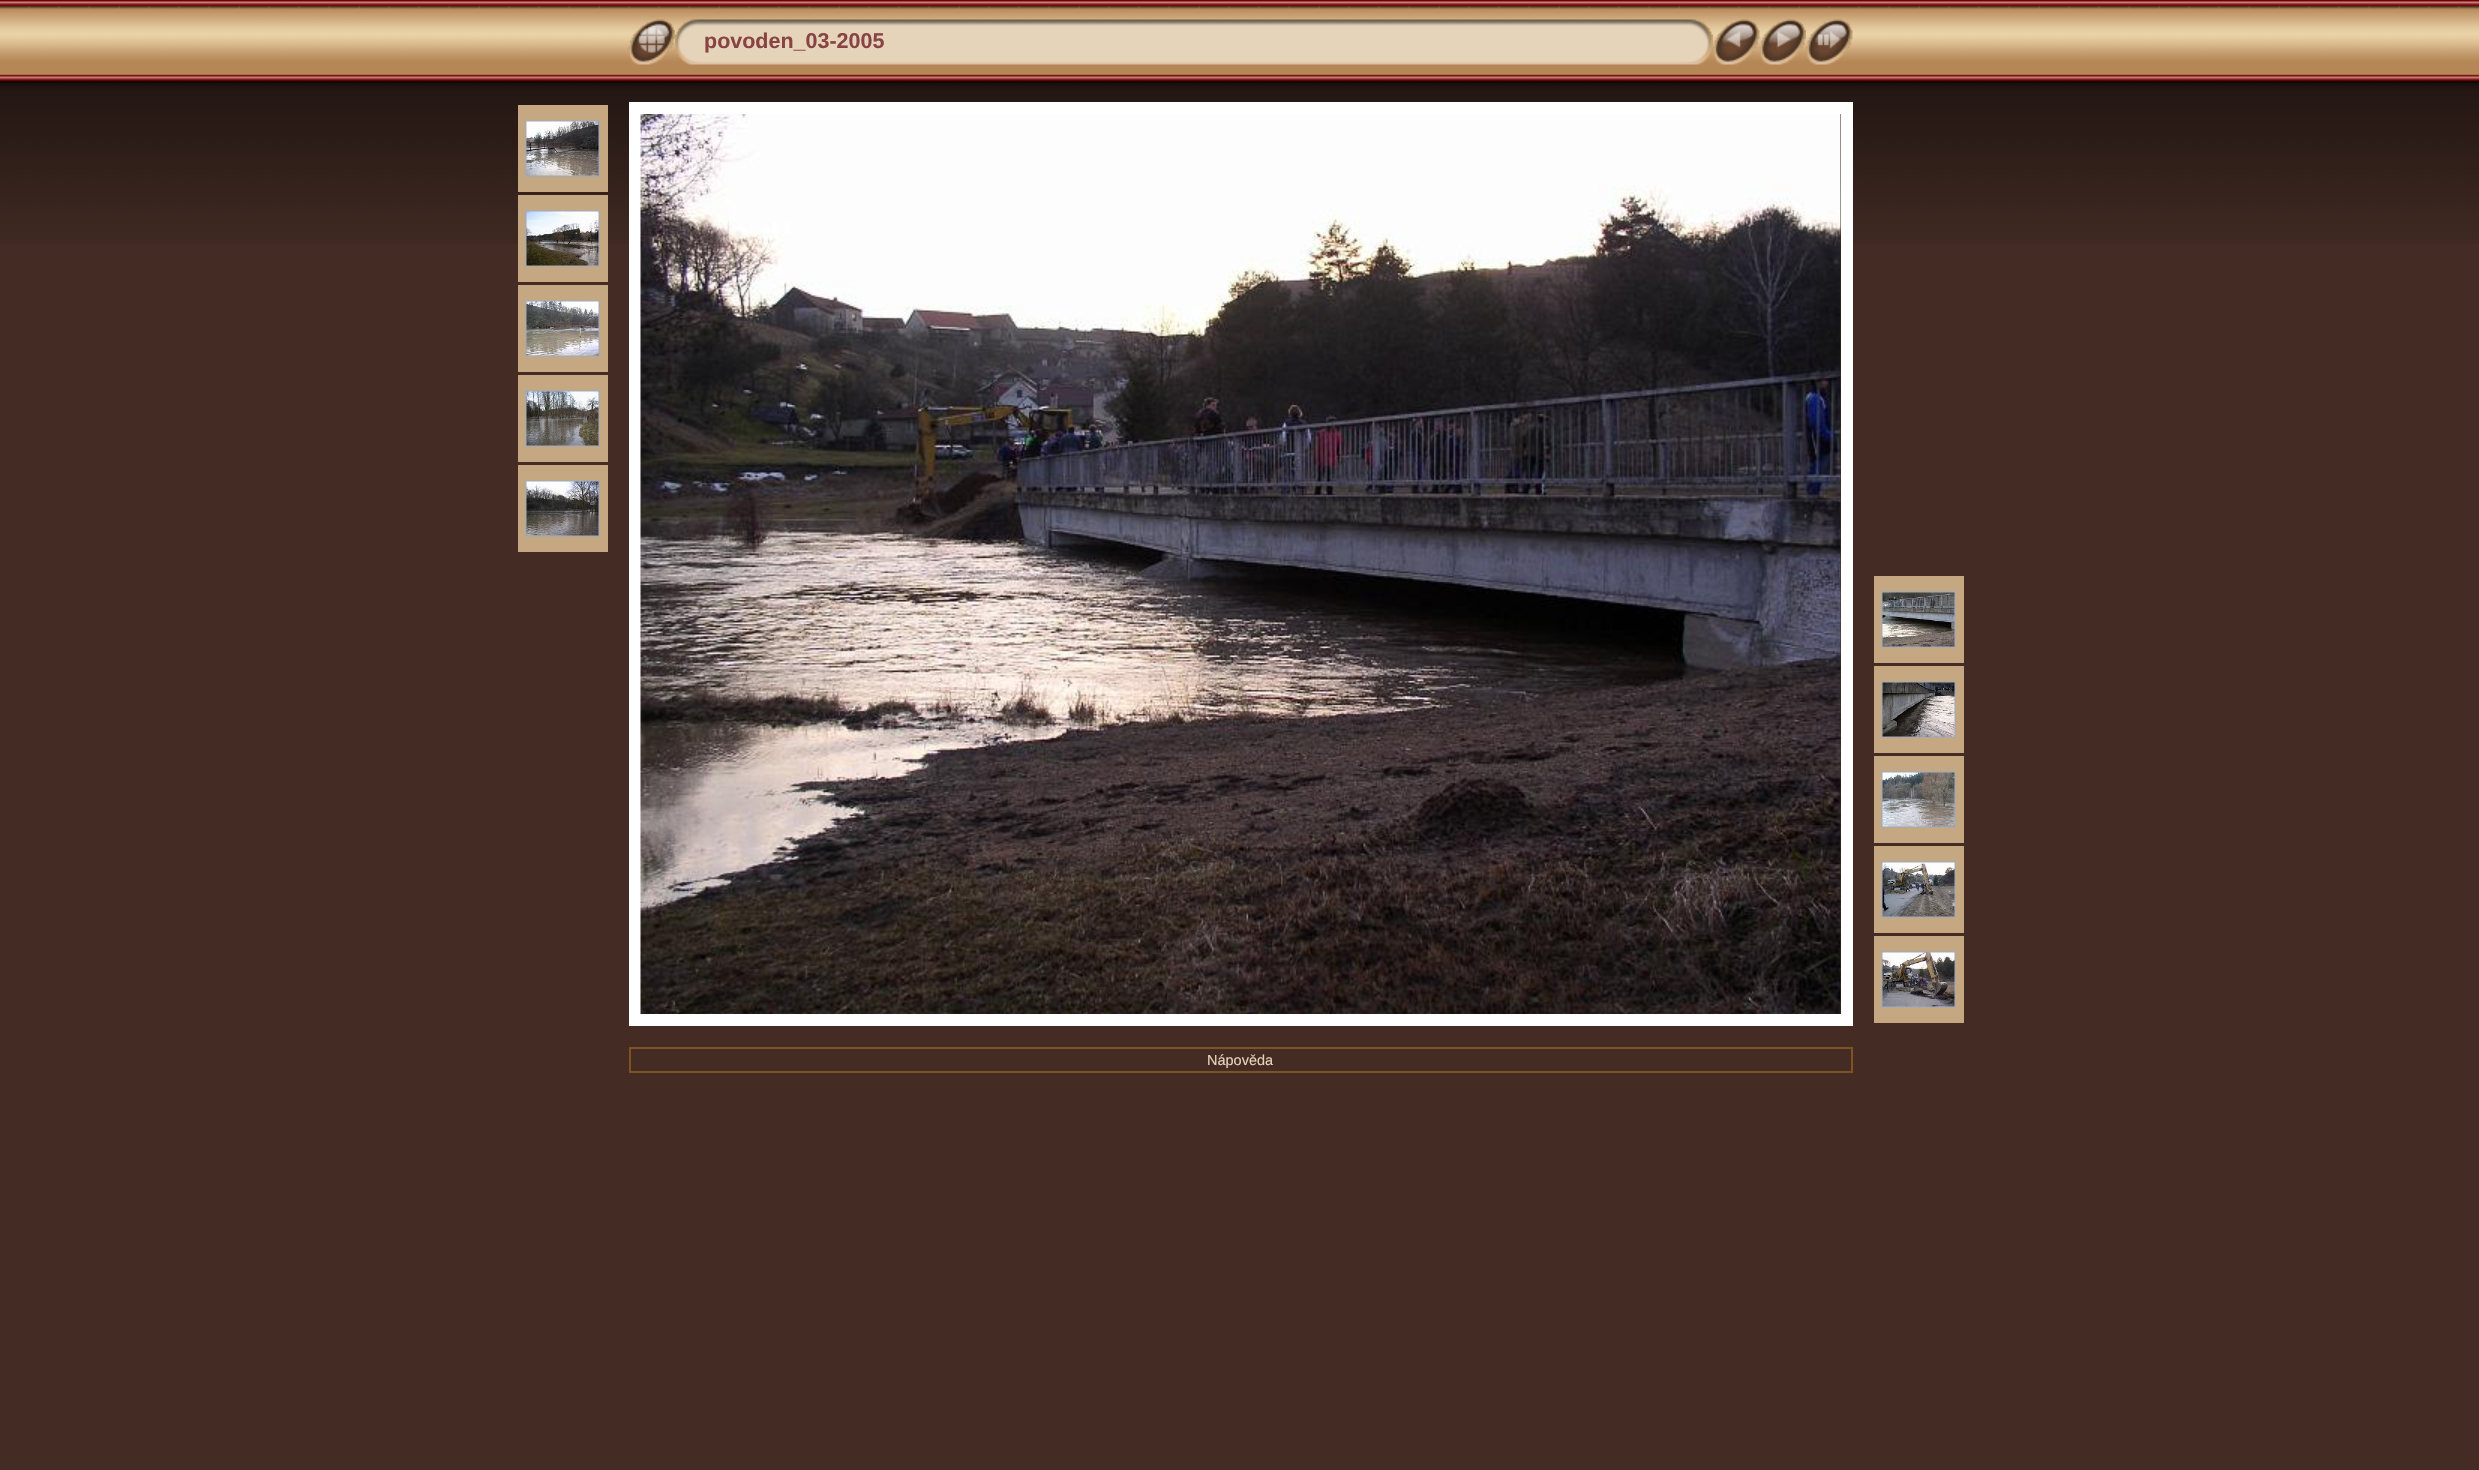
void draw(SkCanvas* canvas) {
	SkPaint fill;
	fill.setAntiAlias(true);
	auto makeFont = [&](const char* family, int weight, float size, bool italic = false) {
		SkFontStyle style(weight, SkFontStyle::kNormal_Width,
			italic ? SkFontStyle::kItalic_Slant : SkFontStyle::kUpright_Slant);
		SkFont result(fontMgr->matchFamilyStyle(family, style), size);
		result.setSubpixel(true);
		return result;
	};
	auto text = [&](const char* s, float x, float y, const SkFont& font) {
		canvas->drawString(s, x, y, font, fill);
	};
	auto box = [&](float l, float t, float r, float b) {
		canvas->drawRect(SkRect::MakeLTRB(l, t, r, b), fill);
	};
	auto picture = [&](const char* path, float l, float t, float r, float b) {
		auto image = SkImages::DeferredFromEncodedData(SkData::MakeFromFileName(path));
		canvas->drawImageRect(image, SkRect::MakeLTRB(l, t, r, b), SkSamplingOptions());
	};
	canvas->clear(0xFF442C25);
	picture("image0.png", 0, 0, 2479, 244);
	picture("image1.png", 628, 19, 675, 65);
	picture("image2.png", 675, 19, 705, 65);
	picture("image3.png", 705, 19, 1683, 65);
	picture("image4.png", 1683, 19, 1713, 65);
	picture("image5.png", 1713, 19, 1760, 65);
	picture("image6.png", 1759, 19, 1806, 65);
	picture("image7.png", 1806, 19, 1853, 65);
	fill.setColor(0xFFC5A881);
	box(518, 105, 608, 192);
	fill.setStyle(SkPaint::kStroke_Style);
	fill.setStrokeWidth(2);
	fill.setColor(0xFFAAAAAA);
	canvas->drawRect(SkRect::MakeLTRB(526, 121, 599, 176), fill);
	picture("image8.png", 526, 121, 599, 176);
	fill.setStyle(SkPaint::kFill_Style);
	fill.setColor(0xFFC5A881);
	box(518, 195, 608, 282);
	fill.setStyle(SkPaint::kStroke_Style);
	fill.setColor(0xFFAAAAAA);
	canvas->drawRect(SkRect::MakeLTRB(526, 211, 599, 266), fill);
	picture("image9.png", 526, 211, 599, 266);
	fill.setStyle(SkPaint::kFill_Style);
	fill.setColor(0xFFC5A881);
	box(518, 285, 608, 372);
	fill.setStyle(SkPaint::kStroke_Style);
	fill.setColor(0xFFAAAAAA);
	canvas->drawRect(SkRect::MakeLTRB(526, 301, 599, 356), fill);
	picture("image10.png", 526, 301, 599, 356);
	fill.setStyle(SkPaint::kFill_Style);
	fill.setColor(0xFFC5A881);
	box(518, 375, 608, 462);
	fill.setStyle(SkPaint::kStroke_Style);
	fill.setColor(0xFFAAAAAA);
	canvas->drawRect(SkRect::MakeLTRB(526, 391, 599, 446), fill);
	picture("image11.png", 526, 391, 599, 446);
	fill.setStyle(SkPaint::kFill_Style);
	fill.setColor(0xFFC5A881);
	box(518, 465, 608, 552);
	fill.setStyle(SkPaint::kStroke_Style);
	fill.setColor(0xFFAAAAAA);
	canvas->drawRect(SkRect::MakeLTRB(526, 481, 599, 536), fill);
	picture("image12.png", 526, 481, 599, 536);
	fill.setStrokeWidth(12);
	fill.setColor(0xFFFFFFFF);
	canvas->drawRect(SkRect::MakeLTRB(635, 108, 1847, 1020), fill);
	picture("image13.png", 640, 114, 1841, 1014);
	fill.setStyle(SkPaint::kFill_Style);
	fill.setColor(0xFFC5A881);
	box(1874, 576, 1964, 663);
	fill.setStyle(SkPaint::kStroke_Style);
	fill.setStrokeWidth(2);
	fill.setColor(0xFFAAAAAA);
	canvas->drawRect(SkRect::MakeLTRB(1882, 592, 1955, 647), fill);
	picture("image14.png", 1882, 592, 1955, 647);
	fill.setStyle(SkPaint::kFill_Style);
	fill.setColor(0xFFC5A881);
	box(1874, 666, 1964, 753);
	fill.setStyle(SkPaint::kStroke_Style);
	fill.setColor(0xFFAAAAAA);
	canvas->drawRect(SkRect::MakeLTRB(1882, 682, 1955, 737), fill);
	picture("image15.png", 1882, 682, 1955, 737);
	fill.setStyle(SkPaint::kFill_Style);
	fill.setColor(0xFFC5A881);
	box(1874, 756, 1964, 843);
	fill.setStyle(SkPaint::kStroke_Style);
	fill.setColor(0xFFAAAAAA);
	canvas->drawRect(SkRect::MakeLTRB(1882, 772, 1955, 827), fill);
	picture("image16.png", 1882, 772, 1955, 827);
	fill.setStyle(SkPaint::kFill_Style);
	fill.setColor(0xFFC5A881);
	box(1874, 846, 1964, 933);
	fill.setStyle(SkPaint::kStroke_Style);
	fill.setColor(0xFFAAAAAA);
	canvas->drawRect(SkRect::MakeLTRB(1882, 862, 1955, 917), fill);
	picture("image17.png", 1882, 862, 1955, 917);
	fill.setStyle(SkPaint::kFill_Style);
	fill.setColor(0xFFC5A881);
	box(1874, 936, 1964, 1023);
	fill.setStyle(SkPaint::kStroke_Style);
	fill.setColor(0xFFAAAAAA);
	canvas->drawRect(SkRect::MakeLTRB(1882, 952, 1955, 1007), fill);
	picture("image18.png", 1882, 952, 1955, 1007);
	fill.setStyle(SkPaint::kFill_Style);
	fill.setColor(0xFF7E5223);
	box(629, 1047, 1853, 1049);
	box(1851, 1047, 1853, 1073);
	box(629, 1071, 1853, 1073);
	box(629, 1047, 631, 1073);
	auto font1 = makeFont("Liberation Sans", 700, 21.5f);
	fill.setColor(0xFF884444);
	text("povoden_03-2005", 704, 48, font1);
	auto font2 = makeFont("Liberation Sans", 400, 14.5f);
	fill.setColor(0xFFE6D4BA);
	text("Nápověda", 1207, 1065, font2);
}
